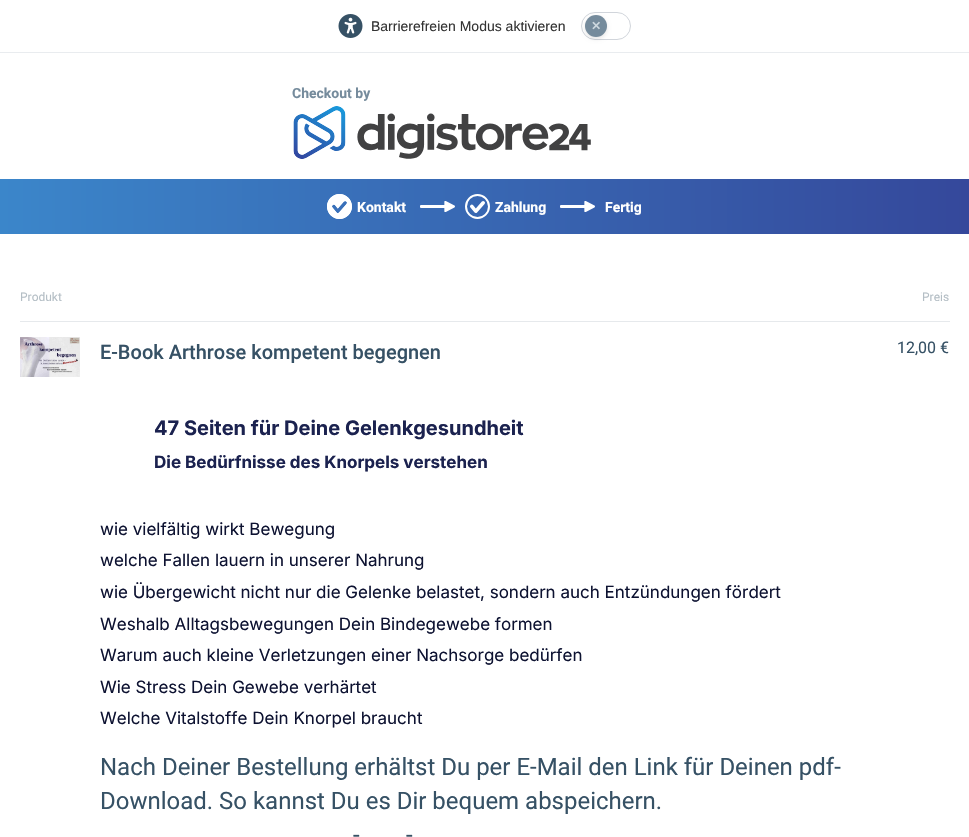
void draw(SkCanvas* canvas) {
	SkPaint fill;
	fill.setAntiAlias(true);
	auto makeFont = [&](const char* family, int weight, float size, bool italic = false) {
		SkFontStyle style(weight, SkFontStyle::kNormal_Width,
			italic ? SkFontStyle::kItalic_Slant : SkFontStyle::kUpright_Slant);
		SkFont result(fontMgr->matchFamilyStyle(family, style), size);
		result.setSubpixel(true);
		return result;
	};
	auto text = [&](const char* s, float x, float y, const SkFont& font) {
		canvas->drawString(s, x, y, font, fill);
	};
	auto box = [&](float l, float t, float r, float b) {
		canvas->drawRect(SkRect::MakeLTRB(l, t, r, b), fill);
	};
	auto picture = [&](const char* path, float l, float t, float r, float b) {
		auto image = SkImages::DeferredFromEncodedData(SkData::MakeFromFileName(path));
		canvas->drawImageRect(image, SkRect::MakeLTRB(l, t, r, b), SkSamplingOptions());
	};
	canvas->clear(0xFFFFFFFF);
	fill.setColor(0xFFE9ECEF);
	box(0, 52, 969, 53);
	picture("image0.png", 338, 14, 363, 38);
	fill.setStyle(SkPaint::kStroke_Style);
	fill.setStrokeWidth(1);
	fill.setColor(0xFFD1D5DB);
	canvas->drawRoundRect(SkRect::MakeLTRB(581.5f, 12.5f, 630.5f, 39.5f), 13.5f, 13.5f, fill);
	fill.setStyle(SkPaint::kFill_Style);
	fill.setColor(0x1A000000);
	fill.setMaskFilter(SkMaskFilter::MakeBlur(kNormal_SkBlurStyle, 2));
	canvas->drawRoundRect(SkRect::MakeLTRB(585, 17, 607, 39), 11, 11, fill);
	fill.setMaskFilter(nullptr);
	fill.setColor(0xFF758B9C);
	canvas->drawCircle(596, 26, 11, fill);
	picture("image1.png", 293, 106, 591, 159);
	{
		const SkColor colors[] = {0xFF3B86CA, 0xFF35489B};
		const float stops[] = {0, 1};
		const SkPoint ends[] = {{0, 207}, {969, 206}};
		fill.setShader(SkGradientShader::MakeLinear(ends, colors, stops, 2, SkTileMode::kClamp));
		fill.setAlpha(255);
	}
	box(0, 179, 969, 234);
	picture("image2.png", 327, 194, 352, 219);
	picture("image3.png", 420, 201, 455, 212);
	picture("image4.png", 465, 194, 490, 219);
	picture("image5.png", 560, 201, 595, 212);
	fill.setShader(nullptr);
	fill.setColor(0xFFE6E9EC);
	box(20, 321, 950, 322);
	picture("image6.png", 20, 337, 80, 377);
	auto font1 = makeFont("Liberation Sans", 400, 14);
	fill.setColor(0xFF333333);
	text("Barrierefreien Modus aktivieren", 371, 31, font1);
	auto font2 = makeFont("DejaVu Sans", 700, 12);
	fill.setColor(0xFFCED9E0);
	text("✕", 591, 30, font2);
	auto font3 = makeFont("Roboto", 700, 14);
	fill.setColor(0xFF758B9C);
	text("Checkout by", 292, 98, font3);
	fill.setColor(0xFFFFFFFF);
	text("Kontakt", 357, 212, font3);
	text("Zahlung", 495, 212, font3);
	text("Fertig", 605, 212, font3);
	auto font4 = makeFont("Roboto", 400, 12);
	fill.setColor(0xFFB4BEC5);
	text("Produkt", 20, 301, font4);
	text("Preis", 922, 301, font4);
	auto font5 = makeFont("Roboto", 500, 20);
	fill.setColor(0xFF365165);
	text("E-Book Arthrose kompetent begegnen", 100, 359, font5);
	auto font6 = makeFont("Inter", 700, 20);
	fill.setColor(0xFF1B224F);
	text("47 Seiten für Deine Gelenkgesundheit", 154, 435, font6);
	auto font7 = makeFont("Inter", 700, 17);
	text("Die Bedürfnisse des Knorpels verstehen", 154, 468, font7);
	auto font8 = makeFont("Inter", 400, 17);
	fill.setColor(0xFF0D1231);
	text("wie vielfältig wirkt Bewegung", 100, 535, font8);
	text("welche Fallen lauern in unserer Nahrung", 100, 566, font8);
	text("wie Übergewicht nicht nur die Gelenke belastet, sondern auch Entzündungen fördert", 100, 598, font8);
	text("Weshalb Alltagsbewegungen Dein Bindegewebe formen", 100, 630, font8);
	text("Warum auch kleine Verletzungen einer Nachsorge bedürfen", 100, 661, font8);
	text("Wie Stress Dein Gewebe verhärtet", 100, 693, font8);
	text("Welche Vitalstoffe Dein Knorpel braucht", 100, 724, font8);
	auto font9 = makeFont("Roboto", 400, 24);
	fill.setColor(0xFF365165);
	text("Nach Deiner Bestellung erhältst Du per E-Mail den Link für Deinen pdf-", 100, 775, font9);
	text("Download. So kannst Du es Dir bequem abspeichern.", 100, 809, font9);
	text("-", 353, 843, font9);
	text("-", 406, 843, font9);
	auto font10 = makeFont("Roboto", 400, 16);
	text("12,00 €", 897, 353, font10);
}
